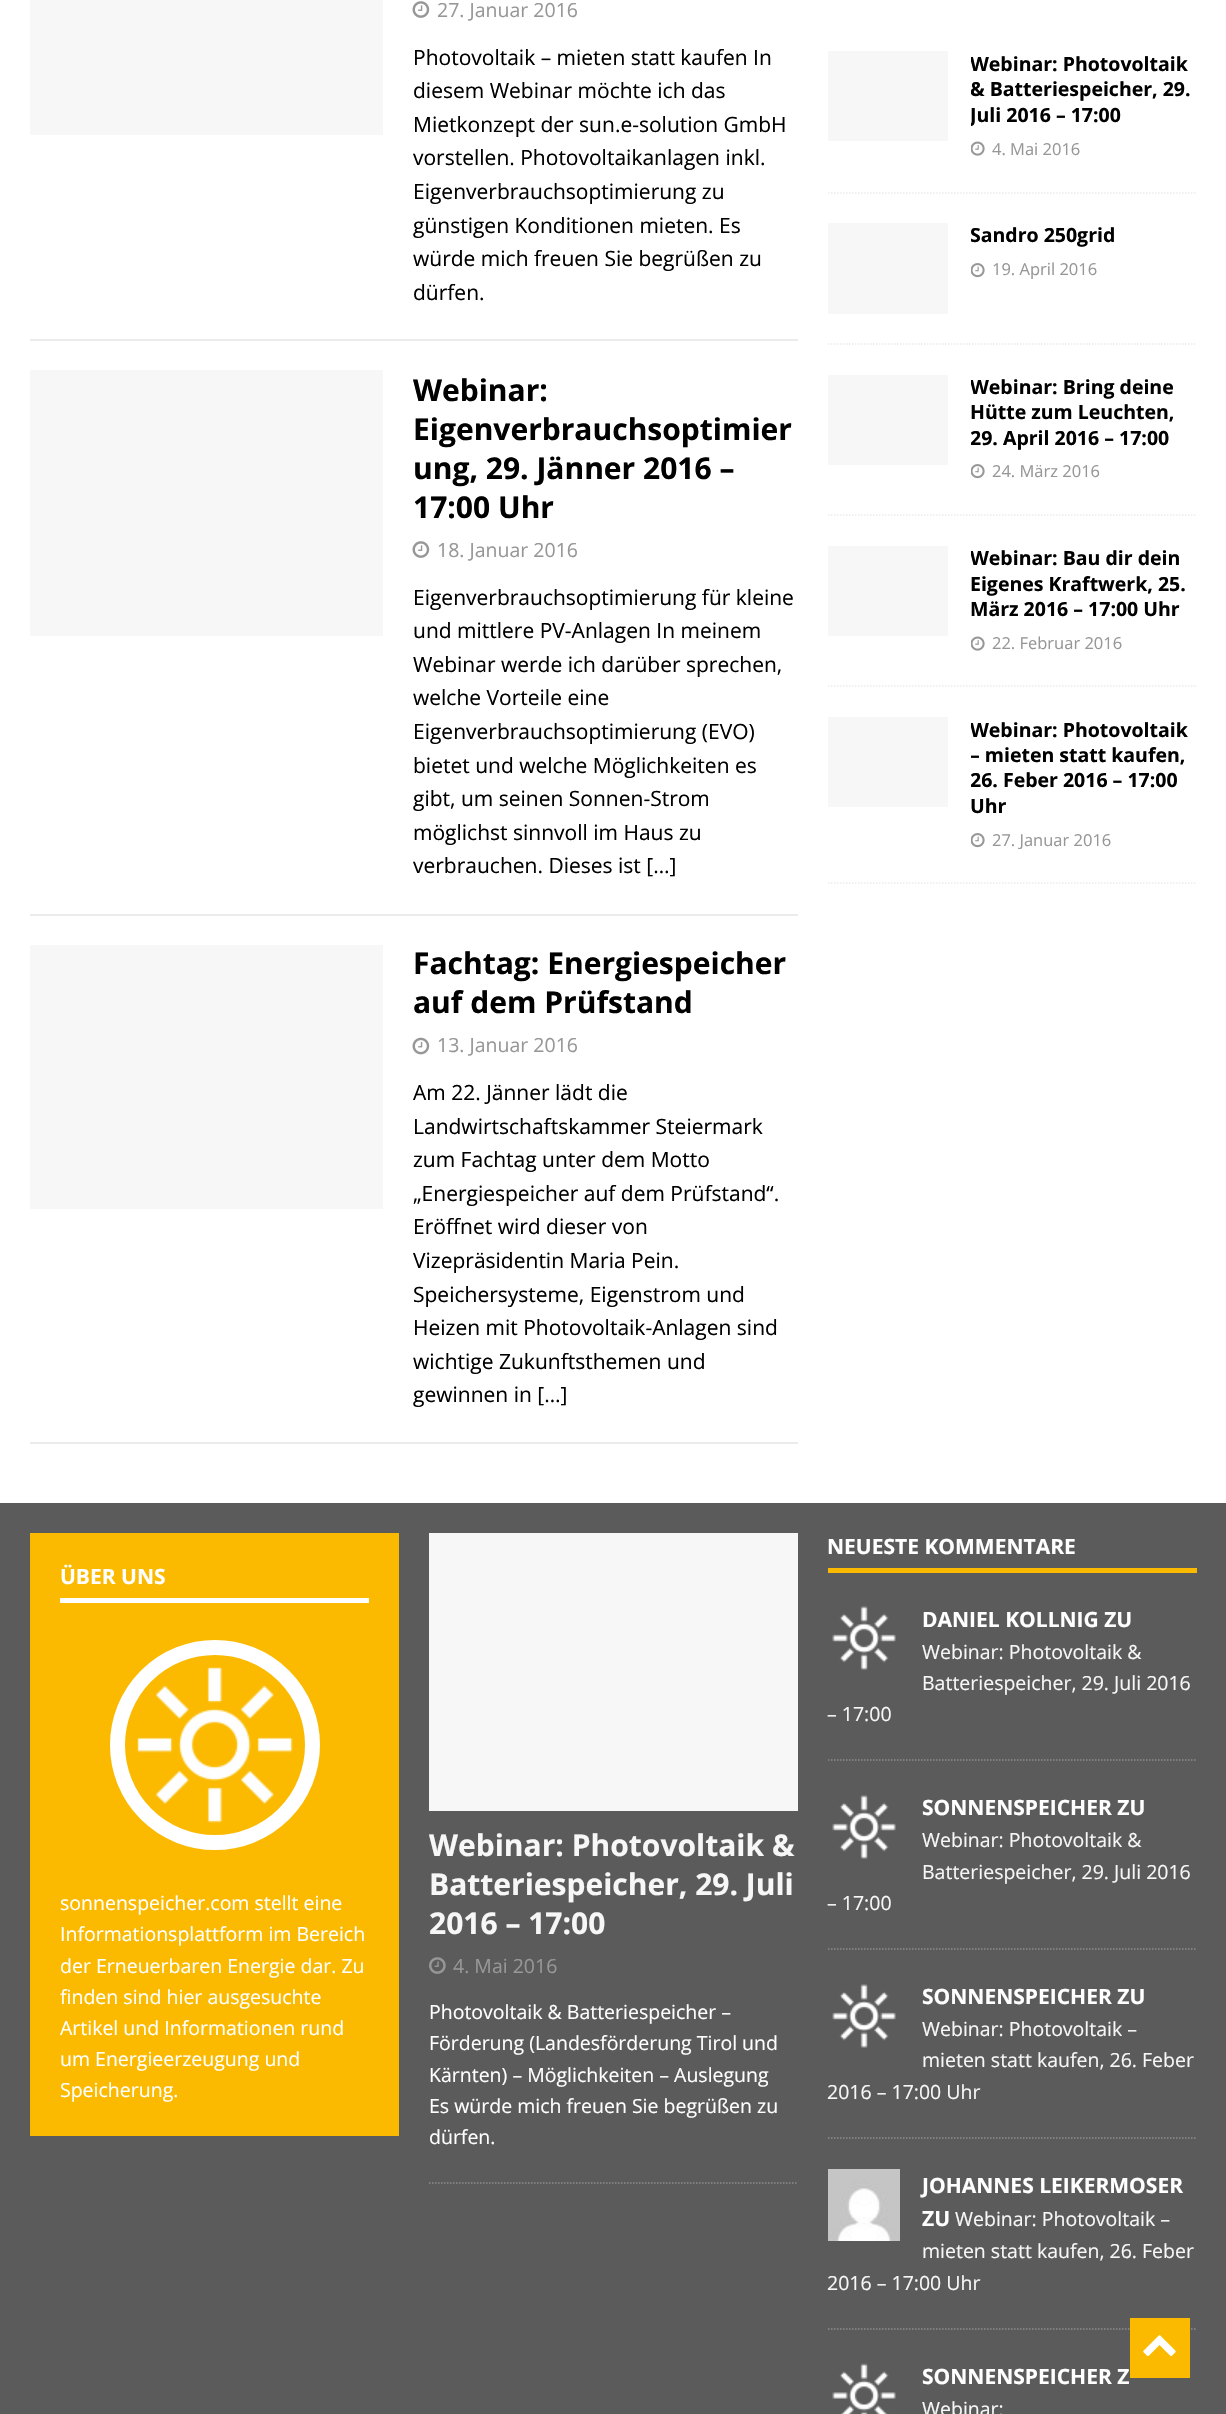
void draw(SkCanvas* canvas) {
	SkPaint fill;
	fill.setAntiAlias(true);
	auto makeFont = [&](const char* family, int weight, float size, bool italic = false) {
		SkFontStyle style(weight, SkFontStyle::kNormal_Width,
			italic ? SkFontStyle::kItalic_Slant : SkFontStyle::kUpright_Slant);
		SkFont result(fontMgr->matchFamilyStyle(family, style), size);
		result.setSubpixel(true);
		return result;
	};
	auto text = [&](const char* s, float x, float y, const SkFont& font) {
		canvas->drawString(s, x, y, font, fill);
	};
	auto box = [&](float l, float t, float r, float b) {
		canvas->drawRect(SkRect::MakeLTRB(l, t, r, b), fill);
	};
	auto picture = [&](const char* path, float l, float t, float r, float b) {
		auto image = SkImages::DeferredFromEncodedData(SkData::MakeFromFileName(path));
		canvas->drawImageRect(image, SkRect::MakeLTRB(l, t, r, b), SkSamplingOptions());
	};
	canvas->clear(0xFFFFFFFF);
	fill.setColor(0xFFEBEBEB);
	box(30, 339, 798, 341);
	fill.setColor(0xFFF7F7F7);
	box(30, 0, 383, 135);
	picture("image0.png", 412, 1, 430, 18);
	fill.setColor(0xFFEBEBEB);
	box(30, 914, 798, 916);
	fill.setColor(0xFFF7F7F7);
	box(30, 370, 383, 636);
	picture("image0.png", 412, 541, 430, 558);
	fill.setColor(0xFFEBEBEB);
	box(30, 1442, 798, 1444);
	fill.setColor(0xFFF7F7F7);
	box(30, 945, 383, 1209);
	picture("image1.png", 412, 1037, 430, 1055);
	fill.setStyle(SkPaint::kStroke_Style);
	fill.setStrokeWidth(1.5f);
	fill.setColor(0xFFEBEBEB);
	fill.setPathEffect(SkDashPathEffect::Make({{1.5f, 1.5f}}, 0));
	canvas->drawPath(SkPathBuilder().moveTo(828, 193).lineTo(1197, 193).detach(), fill);
	fill.setPathEffect(nullptr);
	fill.setStyle(SkPaint::kFill_Style);
	fill.setColor(0xFFF7F7F7);
	box(828, 51, 948, 141);
	picture("image2.png", 971, 141, 985, 156);
	fill.setStyle(SkPaint::kStroke_Style);
	fill.setColor(0xFFEBEBEB);
	fill.setPathEffect(SkDashPathEffect::Make({{1.5f, 1.5f}}, 0));
	canvas->drawPath(SkPathBuilder().moveTo(828, 344).lineTo(1197, 344).detach(), fill);
	fill.setPathEffect(nullptr);
	fill.setStyle(SkPaint::kFill_Style);
	fill.setColor(0xFFF7F7F7);
	box(828, 223, 948, 314);
	picture("image3.png", 971, 263, 985, 278);
	fill.setStyle(SkPaint::kStroke_Style);
	fill.setColor(0xFFEBEBEB);
	fill.setPathEffect(SkDashPathEffect::Make({{1.5f, 1.5f}}, 0));
	canvas->drawPath(SkPathBuilder().moveTo(828, 515).lineTo(1197, 515).detach(), fill);
	fill.setPathEffect(nullptr);
	fill.setStyle(SkPaint::kFill_Style);
	fill.setColor(0xFFF7F7F7);
	box(828, 375, 948, 465);
	picture("image3.png", 971, 464, 985, 479);
	fill.setStyle(SkPaint::kStroke_Style);
	fill.setColor(0xFFEBEBEB);
	fill.setPathEffect(SkDashPathEffect::Make({{1.5f, 1.5f}}, 0));
	canvas->drawPath(SkPathBuilder().moveTo(828, 686).lineTo(1197, 686).detach(), fill);
	fill.setPathEffect(nullptr);
	fill.setStyle(SkPaint::kFill_Style);
	fill.setColor(0xFFF7F7F7);
	box(828, 546, 948, 636);
	picture("image2.png", 971, 636, 985, 651);
	fill.setStyle(SkPaint::kStroke_Style);
	fill.setColor(0xFFEBEBEB);
	fill.setPathEffect(SkDashPathEffect::Make({{1.5f, 1.5f}}, 0));
	canvas->drawPath(SkPathBuilder().moveTo(828, 883).lineTo(1197, 883).detach(), fill);
	fill.setPathEffect(nullptr);
	fill.setStyle(SkPaint::kFill_Style);
	fill.setColor(0xFFF7F7F7);
	box(828, 717, 948, 807);
	picture("image3.png", 971, 833, 985, 848);
	fill.setColor(0xFF5B5B5B);
	box(0, 1503, 1226, 2414);
	fill.setColor(0xFFFBBA00);
	box(30, 1533, 399, 2136);
	fill.setColor(0xFFFFFFFF);
	box(60, 1598, 369, 1603);
	fill.setStyle(SkPaint::kStroke_Style);
	fill.setStrokeWidth(15);
	canvas->drawCircle(215, 1745, 97.5f, fill);
	picture("image4.png", 137, 1667, 293, 1823);
	fill.setStrokeWidth(1.5f);
	fill.setColor(0xFF8C8C8C);
	fill.setPathEffect(SkDashPathEffect::Make({{1.5f, 1.5f}}, 0));
	canvas->drawPath(SkPathBuilder().moveTo(429, 2183).lineTo(798, 2183).detach(), fill);
	fill.setPathEffect(nullptr);
	fill.setStyle(SkPaint::kFill_Style);
	fill.setColor(0xFFF7F7F7);
	box(429, 1533, 798, 1811);
	picture("image5.png", 429, 1957, 446, 1974);
	fill.setColor(0xFFFBBA00);
	box(828, 1568, 1197, 1573);
	fill.setStyle(SkPaint::kStroke_Style);
	fill.setColor(0xFF8C8C8C);
	fill.setPathEffect(SkDashPathEffect::Make({{1.5f, 1.5f}}, 0));
	canvas->drawPath(SkPathBuilder().moveTo(828, 1760).lineTo(1197, 1760).detach(), fill);
	fill.setPathEffect(nullptr);
	picture("image6.png", 832, 1606, 896, 1670);
	fill.setPathEffect(SkDashPathEffect::Make({{1.5f, 1.5f}}, 0));
	canvas->drawPath(SkPathBuilder().moveTo(828, 1949).lineTo(1197, 1949).detach(), fill);
	fill.setPathEffect(nullptr);
	picture("image6.png", 832, 1795, 896, 1859);
	fill.setPathEffect(SkDashPathEffect::Make({{1.5f, 1.5f}}, 0));
	canvas->drawPath(SkPathBuilder().moveTo(828, 2138).lineTo(1197, 2138).detach(), fill);
	fill.setPathEffect(nullptr);
	picture("image6.png", 832, 1984, 896, 2048);
	fill.setPathEffect(SkDashPathEffect::Make({{1.5f, 1.5f}}, 0));
	canvas->drawPath(SkPathBuilder().moveTo(828, 2329).lineTo(1197, 2329).detach(), fill);
	fill.setPathEffect(nullptr);
	picture("image7.png", 828, 2169, 900, 2241);
	picture("image8.png", 832, 2363, 896, 2414);
	fill.setStyle(SkPaint::kFill_Style);
	fill.setColor(0xFFFBBA00);
	box(1130, 2318, 1190, 2378);
	picture("image9.png", 1143, 2335, 1176, 2356);
	auto font1 = makeFont("Open Sans", 400, 19.5f);
	fill.setColor(0xFF979797);
	text("27. Januar 2016", 437, 17, font1);
	auto font2 = makeFont("Open Sans", 400, 21);
	fill.setColor(0xFF000000);
	text("Photovoltaik – mieten statt kaufen In", 413, 65, font2);
	text("diesem Webinar möchte ich das", 413, 98, font2);
	text("Mietkonzept der sun.e-solution GmbH", 413, 132, font2);
	text("vorstellen. Photovoltaikanlagen inkl.", 413, 165, font2);
	text("Eigenverbrauchsoptimierung zu", 413, 199, font2);
	text("günstigen Konditionen mieten. Es", 413, 233, font2);
	text("würde mich freuen Sie begrüßen zu", 413, 266, font2);
	text("dürfen.", 413, 300, font2);
	auto font3 = makeFont("Open Sans", 700, 30);
	text("Webinar:", 413, 401, font3);
	text("Eigenverbrauchsoptimier", 413, 440, font3);
	text("ung, 29. Jänner 2016 –", 413, 479, font3);
	text("17:00 Uhr", 413, 518, font3);
	fill.setColor(0xFF979797);
	text("18. Januar 2016", 437, 557, font1);
	fill.setColor(0xFF000000);
	text("Eigenverbrauchsoptimierung für kleine", 413, 605, font2);
	text("und mittlere PV-Anlagen In meinem", 413, 638, font2);
	text("Webinar werde ich darüber sprechen,", 413, 672, font2);
	text("welche Vorteile eine", 413, 705, font2);
	text("Eigenverbrauchsoptimierung (EVO)", 413, 739, font2);
	text("bietet und welche Möglichkeiten es", 413, 773, font2);
	text("gibt, um seinen Sonnen-Strom", 413, 806, font2);
	text("möglichst sinnvoll im Haus zu", 413, 840, font2);
	text("verbrauchen. Dieses ist […]", 413, 873, font2);
	text("Fachtag: Energiespeicher", 413, 974, font3);
	text("auf dem Prüfstand", 413, 1013, font3);
	fill.setColor(0xFF979797);
	text("13. Januar 2016", 437, 1052, font1);
	fill.setColor(0xFF000000);
	text("Am 22. Jänner lädt die", 413, 1100, font2);
	text("Landwirtschaftskammer Steiermark", 413, 1134, font2);
	text("zum Fachtag unter dem Motto", 413, 1167, font2);
	text("„Energiespeicher auf dem Prüfstand“.", 413, 1201, font2);
	text("Eröffnet wird dieser von", 413, 1234, font2);
	text("Vizepräsidentin Maria Pein.", 413, 1268, font2);
	text("Speichersysteme, Eigenstrom und", 413, 1302, font2);
	text("Heizen mit Photovoltaik-Anlagen sind", 413, 1335, font2);
	text("wichtige Zukunftsthemen und", 413, 1369, font2);
	text("gewinnen in […]", 413, 1402, font2);
	canvas->save();
	canvas->clipRect(SkRect::MakeLTRB(971, 51, 1197, 162));
	auto font4 = makeFont("Open Sans", 700, 19.5f);
	text("Webinar: Photovoltaik", 970, 71, font4);
	text("& Batteriespeicher, 29.", 970, 96, font4);
	text("Juli 2016 – 17:00", 970, 122, font4);
	canvas->restore();
	auto font5 = makeFont("Open Sans", 400, 16.5f);
	fill.setColor(0xFF979797);
	text("4. Mai 2016", 992, 155, font5);
	canvas->save();
	canvas->clipRect(SkRect::MakeLTRB(971, 224, 1197, 282));
	fill.setColor(0xFF000000);
	text("Sandro 250grid", 970, 242, font4);
	canvas->restore();
	fill.setColor(0xFF979797);
	text("19. April 2016", 992, 275, font5);
	canvas->save();
	canvas->clipRect(SkRect::MakeLTRB(971, 375, 1197, 485));
	fill.setColor(0xFF000000);
	text("Webinar: Bring deine", 970, 394, font4);
	canvas->restore();
	text("Hütte zum Leuchten,", 970, 419, font4);
	canvas->save();
	canvas->clipRect(SkRect::MakeLTRB(971, 375, 1197, 485));
	text("29. April 2016 – 17:00", 970, 445, font4);
	canvas->restore();
	fill.setColor(0xFF979797);
	text("24. März 2016", 992, 477, font5);
	canvas->save();
	canvas->clipRect(SkRect::MakeLTRB(971, 546, 1197, 656));
	fill.setColor(0xFF000000);
	text("Webinar: Bau dir dein", 970, 565, font4);
	canvas->restore();
	text("Eigenes Kraftwerk, 25.", 970, 591, font4);
	text("März 2016 – 17:00 Uhr", 970, 616, font4);
	fill.setColor(0xFF979797);
	text("22. Februar 2016", 992, 649, font5);
	canvas->save();
	canvas->clipRect(SkRect::MakeLTRB(971, 717, 1197, 852));
	fill.setColor(0xFF000000);
	text("Webinar: Photovoltaik", 970, 737, font4);
	text("– mieten statt kaufen,", 970, 762, font4);
	text("26. Feber 2016 – 17:00", 970, 787, font4);
	canvas->restore();
	text("Uhr", 970, 813, font4);
	fill.setColor(0xFF979797);
	text("27. Januar 2016", 992, 846, font5);
	auto font6 = makeFont("Open Sans", 700, 21);
	fill.setColor(0xFFFFFFFF);
	text("ÜBER UNS", 60, 1584, font6);
	text("sonnenspeicher.com stellt eine", 60, 1910, font1);
	text("Informationsplattform im Bereich", 60, 1941, font1);
	text("der Erneuerbaren Energie dar. Zu", 60, 1973, font1);
	text("finden sind hier ausgesuchte", 60, 2004, font1);
	text("Artikel und Informationen rund", 60, 2035, font1);
	text("um Energieerzeugung und", 60, 2066, font1);
	text("Speicherung.", 60, 2097, font1);
	fill.setColor(0xFFF7F7F7);
	text("Webinar: Photovoltaik &", 429, 1856, font3);
	text("Batteriespeicher, 29. Juli", 429, 1895, font3);
	text("2016 – 17:00", 429, 1934, font3);
	fill.setColor(0xFF979797);
	text("4. Mai 2016", 453, 1973, font1);
	fill.setColor(0xFFFFFFFF);
	text("Photovoltaik & Batteriespeicher –", 429, 2019, font1);
	text("Förderung (Landesförderung Tirol und", 429, 2050, font1);
	text("Kärnten) – Möglichkeiten – Auslegung", 429, 2082, font1);
	text("Es würde mich freuen Sie begrüßen zu", 429, 2113, font1);
	text("dürfen.", 429, 2144, font1);
	text("NEUESTE KOMMENTARE", 827, 1554, font6);
	text("DANIEL KOLLNIG ZU", 922, 1627, font6);
	fill.setColor(0xFFF7F7F7);
	text("Webinar: Photovoltaik &", 922, 1659, font1);
	text("Batteriespeicher, 29. Juli 2016", 922, 1690, font1);
	text("– 17:00", 827, 1721, font1);
	fill.setColor(0xFFFFFFFF);
	text("SONNENSPEICHER ZU", 922, 1815, font6);
	fill.setColor(0xFFF7F7F7);
	text("Webinar: Photovoltaik &", 922, 1847, font1);
	text("Batteriespeicher, 29. Juli 2016", 922, 1879, font1);
	text("– 17:00", 827, 1910, font1);
	fill.setColor(0xFFFFFFFF);
	text("SONNENSPEICHER ZU", 922, 2004, font6);
	fill.setColor(0xFFF7F7F7);
	text("Webinar: Photovoltaik –", 922, 2036, font1);
	text("mieten statt kaufen, 26. Feber", 922, 2067, font1);
	text("2016 – 17:00 Uhr", 827, 2099, font1);
	fill.setColor(0xFFFFFFFF);
	text("JOHANNES LEIKERMOSER", 922, 2193, font6);
	text("ZU", 922, 2226, font6);
	fill.setColor(0xFFF7F7F7);
	text("Webinar: Photovoltaik –", 955, 2226, font1);
	text("mieten statt kaufen, 26. Feber", 922, 2258, font1);
	text("2016 – 17:00 Uhr", 827, 2290, font1);
	fill.setColor(0xFFFFFFFF);
	text("SONNENSPEICHER Z", 922, 2384, font6);
	fill.setColor(0xFFF7F7F7);
	text("Webinar:", 922, 2416, font1);
}
